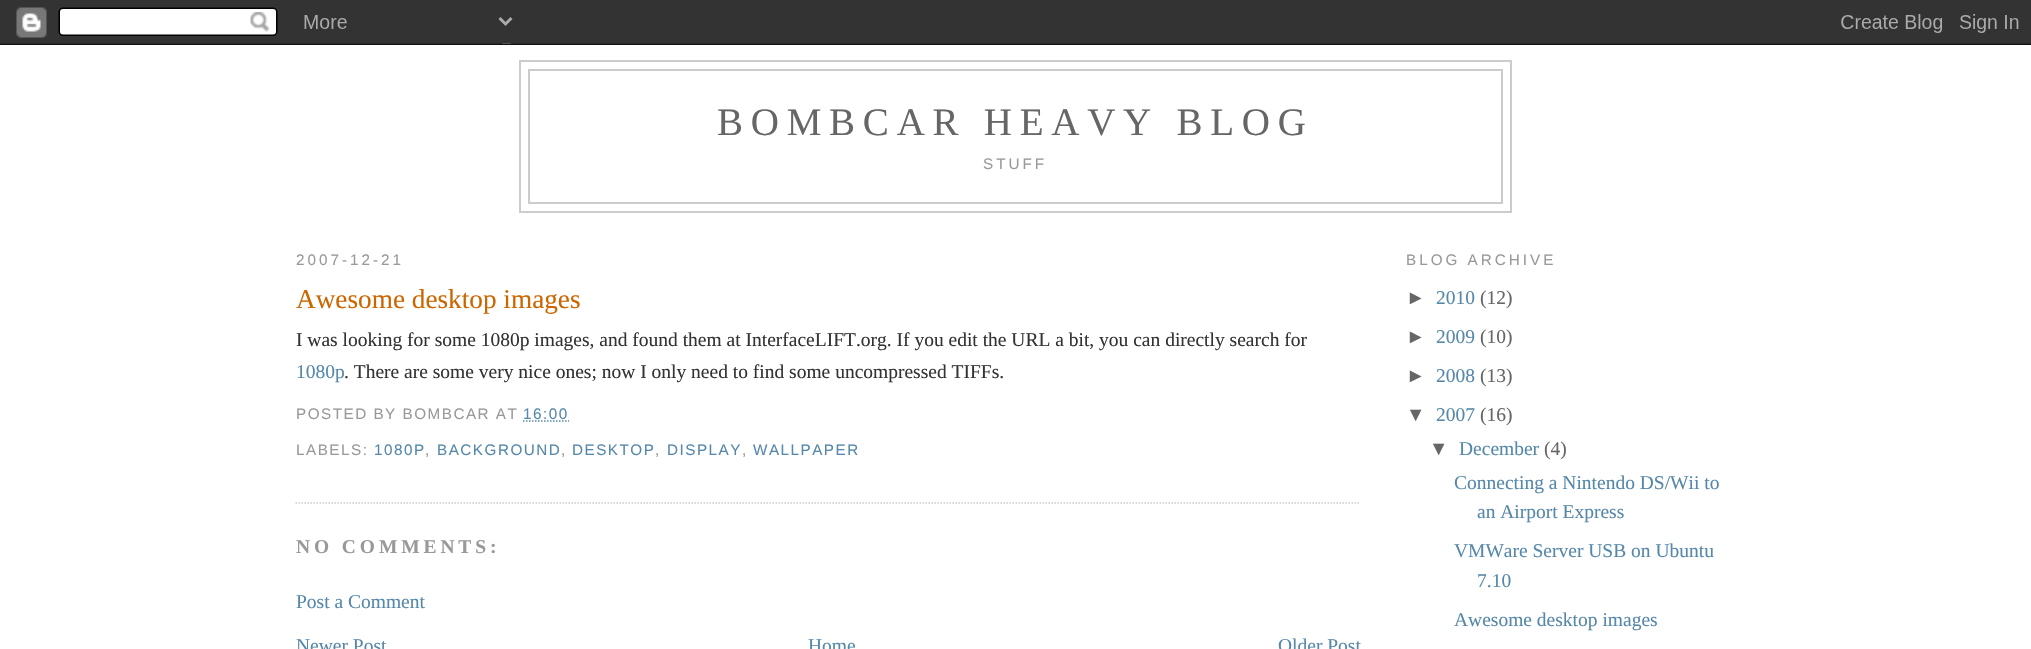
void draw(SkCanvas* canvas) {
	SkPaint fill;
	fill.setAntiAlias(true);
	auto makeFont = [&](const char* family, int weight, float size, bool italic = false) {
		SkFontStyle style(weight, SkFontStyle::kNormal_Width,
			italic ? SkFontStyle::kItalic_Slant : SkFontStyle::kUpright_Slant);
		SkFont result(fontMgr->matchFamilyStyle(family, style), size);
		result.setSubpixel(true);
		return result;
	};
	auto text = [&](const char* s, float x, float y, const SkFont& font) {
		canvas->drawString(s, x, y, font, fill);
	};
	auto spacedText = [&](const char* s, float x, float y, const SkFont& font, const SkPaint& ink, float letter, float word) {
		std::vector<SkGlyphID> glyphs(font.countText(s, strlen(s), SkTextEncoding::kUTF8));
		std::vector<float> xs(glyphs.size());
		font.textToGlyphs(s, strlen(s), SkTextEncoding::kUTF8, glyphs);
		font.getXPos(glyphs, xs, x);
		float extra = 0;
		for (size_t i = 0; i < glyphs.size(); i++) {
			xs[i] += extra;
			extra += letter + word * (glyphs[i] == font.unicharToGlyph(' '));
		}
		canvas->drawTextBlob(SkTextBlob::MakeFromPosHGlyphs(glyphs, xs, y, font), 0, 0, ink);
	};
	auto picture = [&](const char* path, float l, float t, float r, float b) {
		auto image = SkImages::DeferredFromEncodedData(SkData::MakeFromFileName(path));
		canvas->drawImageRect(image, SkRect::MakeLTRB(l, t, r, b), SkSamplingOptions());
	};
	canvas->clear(0xFFFFFFFF);
	picture("image0.png", 0, 0, 2031, 45);
	fill.setStyle(SkPaint::kStroke_Style);
	fill.setStrokeWidth(2);
	fill.setColor(0xFFCCCCCC);
	canvas->drawRect(SkRect::MakeLTRB(520, 61, 1511, 212), fill);
	canvas->drawRect(SkRect::MakeLTRB(529, 70, 1502, 203), fill);
	fill.setStrokeWidth(1.5f);
	fill.setPathEffect(SkDashPathEffect::Make({{1.5f, 1.5f}}, 0));
	canvas->drawPath(SkPathBuilder().moveTo(295.5f, 503).lineTo(1360.5f, 503).detach(), fill);
	fill.setPathEffect(nullptr);
	fill.setColor(0xFF5588AA);
	fill.setPathEffect(SkDashPathEffect::Make({{1.5f, 1.5f}}, 0));
	canvas->drawPath(SkPathBuilder().moveTo(523, 421).lineTo(569, 421).detach(), fill);
	fill.setPathEffect(nullptr);
	auto font1 = makeFont("Liberation Serif", 400, 39);
	fill.setStyle(SkPaint::kFill_Style);
	fill.setColor(0xFF666666);
	spacedText("BOMBCAR HEAVY BLOG", 717, 135, font1, fill, 7.75f, 0);
	auto font2 = makeFont("Liberation Sans", 400, 15.25f);
	fill.setColor(0xFF999999);
	spacedText("STUFF", 983, 169, font2, fill, 3, 0);
	spacedText("2007-12-21", 296, 265, font2, fill, 3, 0);
	auto font3 = makeFont("Liberation Serif", 400, 27.25f);
	fill.setColor(0xFFCC6600);
	text("Awesome desktop images", 296, 308, font3);
	auto font4 = makeFont("Liberation Serif", 400, 19.5f);
	fill.setColor(0xFF333333);
	text("I was looking for some 1080p images, and found them at InterfaceLIFT.org. If you edit the URL a bit, you can directly search for", 296, 346, font4);
	fill.setColor(0xFF5588AA);
	text("1080p", 296, 378, font4);
	fill.setColor(0xFF333333);
	text(". There are some very nice ones; now I only need to find some uncompressed TIFFs.", 344, 378, font4);
	fill.setColor(0xFF999999);
	spacedText("POSTED BY BOMBCAR AT", 296, 419, font2, fill, 1.5f, 0);
	fill.setColor(0xFF5588AA);
	spacedText("16:00", 523, 419, font2, fill, 1.5f, 0);
	fill.setColor(0xFF999999);
	spacedText("LABELS:", 296, 455, font2, fill, 1.5f, 0);
	fill.setColor(0xFF5588AA);
	spacedText("1080P", 374, 455, font2, fill, 1.5f, 0);
	fill.setColor(0xFF999999);
	spacedText(",", 425, 455, font2, fill, 1.5f, 0);
	fill.setColor(0xFF5588AA);
	spacedText("BACKGROUND", 437, 455, font2, fill, 1.5f, 0);
	fill.setColor(0xFF999999);
	spacedText(",", 561, 455, font2, fill, 1.5f, 0);
	fill.setColor(0xFF5588AA);
	spacedText("DESKTOP", 572, 455, font2, fill, 1.5f, 0);
	fill.setColor(0xFF999999);
	spacedText(",", 655, 455, font2, fill, 1.5f, 0);
	fill.setColor(0xFF5588AA);
	spacedText("DISPLAY", 667, 455, font2, fill, 1.5f, 0);
	fill.setColor(0xFF999999);
	spacedText(",", 742, 455, font2, fill, 1.5f, 0);
	fill.setColor(0xFF5588AA);
	spacedText("WALLPAPER", 753, 455, font2, fill, 1.5f, 0);
	auto font5 = makeFont("Liberation Serif", 700, 19.5f);
	fill.setColor(0xFF999999);
	spacedText("NO COMMENTS:", 296, 553, font5, fill, 3.9f, 0);
	fill.setColor(0xFF5588AA);
	text("Post a Comment", 296, 608, font4);
	text("Newer Post", 296, 652, font4);
	text("Home", 808, 652, font4);
	text("Older Post", 1278, 652, font4);
	fill.setColor(0xFF999999);
	spacedText("BLOG ARCHIVE", 1406, 265, font2, fill, 3, 0);
	auto font6 = makeFont("Liberation Sans", 400, 19.5f);
	fill.setColor(0xFF666666);
	text("►", 1406, 304, font6);
	fill.setColor(0xFF5588AA);
	text("2010", 1436, 304, font4);
	fill.setColor(0xFF666666);
	text("(12)", 1480, 304, font4);
	text("►", 1406, 343, font6);
	fill.setColor(0xFF5588AA);
	text("2009", 1436, 343, font4);
	fill.setColor(0xFF666666);
	text("(10)", 1480, 343, font4);
	text("►", 1406, 382, font6);
	fill.setColor(0xFF5588AA);
	text("2008", 1436, 382, font4);
	fill.setColor(0xFF666666);
	text("(13)", 1480, 382, font4);
	text("▼", 1406, 421, font6);
	fill.setColor(0xFF5588AA);
	text("2007", 1436, 421, font4);
	fill.setColor(0xFF666666);
	text("(16)", 1480, 421, font4);
	text("▼", 1429, 455, font6);
	fill.setColor(0xFF5588AA);
	text("December", 1459, 455, font4);
	fill.setColor(0xFF666666);
	text("(4)", 1544, 455, font4);
	fill.setColor(0xFF5588AA);
	text("Connecting a Nintendo DS/Wii to", 1454, 489, font4);
	text("an Airport Express", 1477, 518, font4);
	text("VMWare Server USB on Ubuntu", 1454, 557, font4);
	text("7.10", 1477, 587, font4);
	text("Awesome desktop images", 1454, 626, font4);
}
